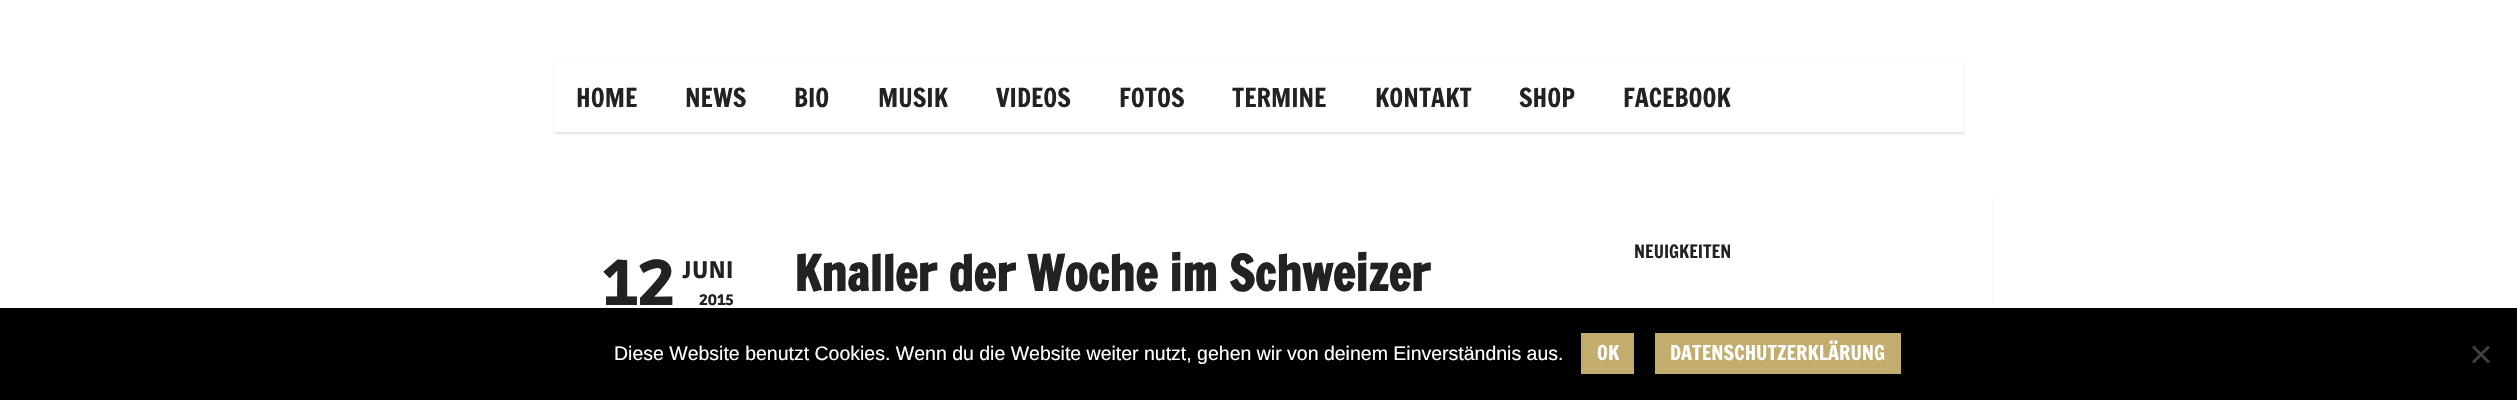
void draw(SkCanvas* canvas) {
	SkPaint fill;
	fill.setAntiAlias(true);
	auto makeFont = [&](const char* family, int weight, float size, bool italic = false) {
		SkFontStyle style(weight, SkFontStyle::kNormal_Width,
			italic ? SkFontStyle::kItalic_Slant : SkFontStyle::kUpright_Slant);
		SkFont result(fontMgr->matchFamilyStyle(family, style), size);
		result.setSubpixel(true);
		return result;
	};
	auto text = [&](const char* s, float x, float y, const SkFont& font) {
		canvas->drawString(s, x, y, font, fill);
	};
	auto box = [&](float l, float t, float r, float b) {
		canvas->drawRect(SkRect::MakeLTRB(l, t, r, b), fill);
	};
	canvas->clear(0xFFFFFFFF);
	canvas->save();
	canvas->clipPath(SkPathBuilder(SkPathFillType::kEvenOdd).moveTo(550, 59).lineTo(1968, 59).lineTo(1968, 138).lineTo(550, 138).close().moveTo(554, 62).lineTo(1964, 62).lineTo(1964, 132).lineTo(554, 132).close().detach(), true);
	fill.setColor(0x1A000000);
	fill.setMaskFilter(SkMaskFilter::MakeBlur(kNormal_SkBlurStyle, 1));
	canvas->drawRect(SkRect::MakeLTRB(554, 63, 1964, 134), fill);
	fill.setMaskFilter(nullptr);
	canvas->restore();
	fill.setColor(0xFFFAFAFA);
	box(1963, 65, 1964, 132);
	box(1993, 196, 1994, 308);
	fill.setColor(0xFF000000);
	box(0, 308, 2517, 400);
	fill.setColor(0xFFC2AD6E);
	box(1581, 333, 1634, 374);
	box(1655, 333, 1901, 374);
	fill.setColor(0xFF404040);
	canvas->drawPath(SkPathBuilder().moveTo(2488, 345.5f).lineTo(2490, 347.5f).lineTo(2474, 363.5f).lineTo(2472, 361.5f).close().detach(), fill);
	canvas->drawPath(SkPathBuilder().moveTo(2472, 347.5f).lineTo(2474, 345.5f).lineTo(2490, 361.5f).lineTo(2488, 363.5f).close().detach(), fill);
	auto font1 = makeFont("Francois One", 400, 25.5f);
	fill.setColor(0xFF222222);
	text("HOME", 576, 107, font1);
	text("NEWS", 685, 107, font1);
	text("BIO", 794, 107, font1);
	text("MUSIK", 878, 107, font1);
	text("VIDEOS", 996, 107, font1);
	text("FOTOS", 1119, 107, font1);
	text("TERMINE", 1232, 107, font1);
	text("KONTAKT", 1375, 107, font1);
	text("SHOP", 1519, 107, font1);
	text("FACEBOOK", 1623, 107, font1);
	auto font2 = makeFont("Francois One", 400, 18);
	text("NEUIGKEITEN", 1634, 258, font2);
	auto font3 = makeFont("Ruda", 900, 64);
	text("12", 602, 305, font3);
	auto font4 = makeFont("Ruda", 900, 24);
	text("JUNI", 683, 278, font4);
	auto font5 = makeFont("Ruda", 900, 15);
	text("2015", 699, 305, font5);
	auto font6 = makeFont("Francois One", 700, 48);
	text("Knaller der Woche im Schweizer", 794, 291, font6);
	auto font7 = makeFont("Liberation Sans", 400, 19.5f);
	fill.setColor(0xFFFFFFFF);
	text("Diese Website benutzt Cookies. Wenn du die Website weiter nutzt, gehen wir von deinem Einverständnis aus.", 614, 360, font7);
	auto font8 = makeFont("Francois One", 400, 20);
	text("OK", 1597, 360, font8);
	text("DATENSCHUTZERKLÄRUNG", 1670, 360, font8);
}
